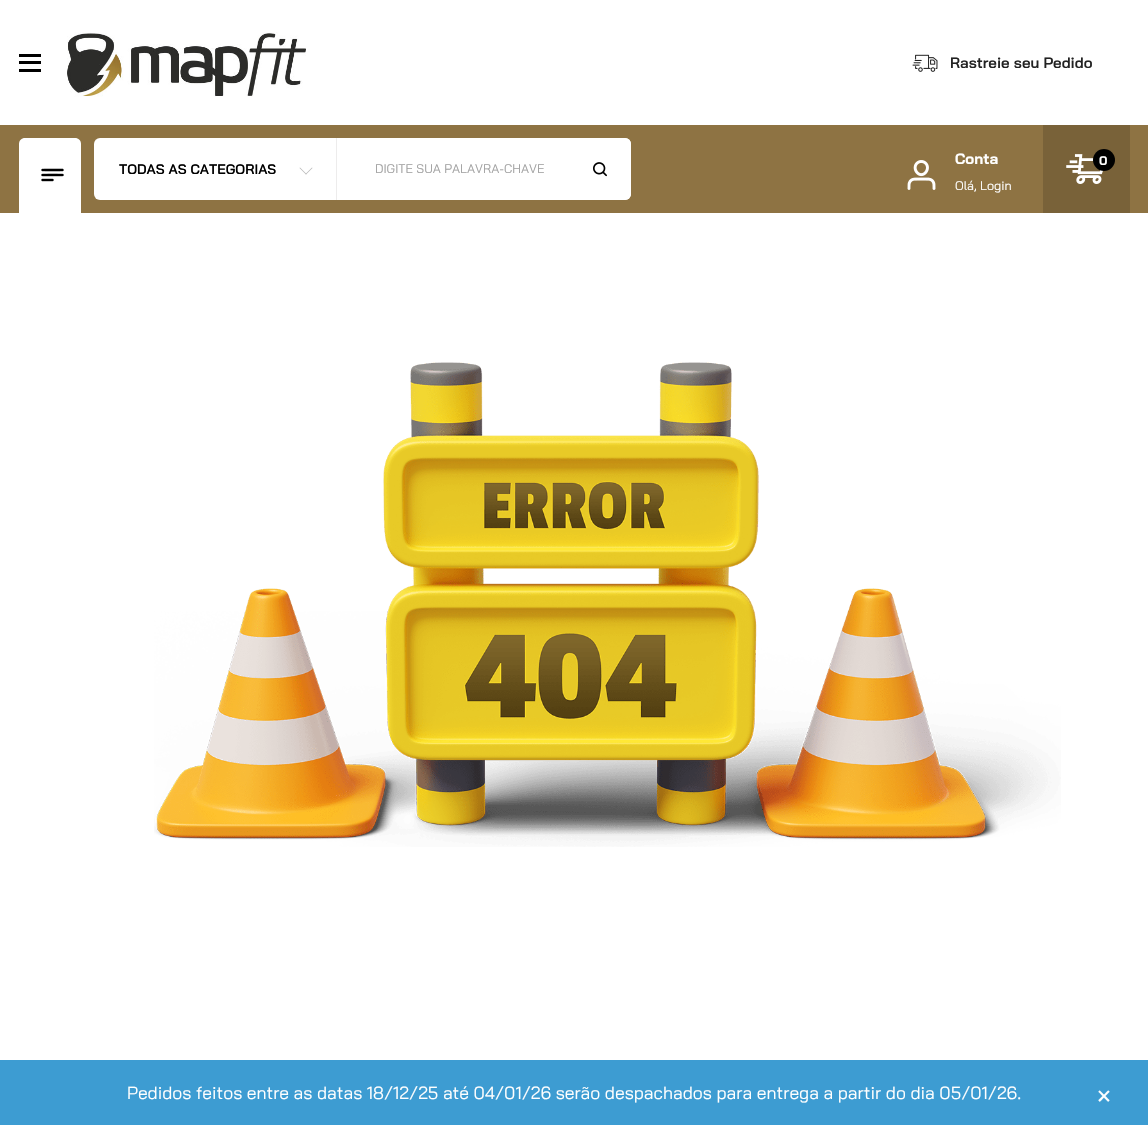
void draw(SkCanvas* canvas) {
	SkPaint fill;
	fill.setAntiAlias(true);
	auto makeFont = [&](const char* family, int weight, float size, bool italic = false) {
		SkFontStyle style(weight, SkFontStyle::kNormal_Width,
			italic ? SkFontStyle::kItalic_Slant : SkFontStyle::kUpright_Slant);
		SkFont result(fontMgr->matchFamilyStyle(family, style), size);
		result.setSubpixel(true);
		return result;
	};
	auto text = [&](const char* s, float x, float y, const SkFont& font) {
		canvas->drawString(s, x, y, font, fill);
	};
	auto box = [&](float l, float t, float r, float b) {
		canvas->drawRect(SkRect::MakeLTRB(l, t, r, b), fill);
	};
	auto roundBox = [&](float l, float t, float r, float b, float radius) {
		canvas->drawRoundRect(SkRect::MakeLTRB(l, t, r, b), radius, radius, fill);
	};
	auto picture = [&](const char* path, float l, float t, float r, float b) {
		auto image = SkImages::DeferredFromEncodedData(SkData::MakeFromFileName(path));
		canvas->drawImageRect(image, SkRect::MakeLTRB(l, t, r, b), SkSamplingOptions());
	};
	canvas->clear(0xFFFFFFFF);
	fill.setColor(0xFF8E7343);
	box(0, 125, 1148, 213);
	fill.setColor(0xFFFFFFFF);
	canvas->drawPath(SkPathBuilder().moveTo(25, 138).lineTo(75, 138).cubicTo(78.5f, 138, 81, 140.5f, 81, 144).lineTo(81, 213).lineTo(19, 213).lineTo(19, 144).cubicTo(19, 140.5f, 21.5f, 138, 25, 138).close().detach(), fill);
	picture("image0.png", 41, 168, 64, 182);
	fill.setColor(0xFF000000);
	box(19, 54, 41, 57);
	box(19, 61, 41, 64);
	box(19, 69, 41, 72);
	picture("image1.png", 67, 32, 306, 97);
	picture("image2.png", 912, 54, 938, 72);
	fill.setColor(0xFFFFFFFF);
	roundBox(94, 138, 631, 200, 6);
	fill.setColor(0xFFEDECEC);
	box(336, 138, 337, 200);
	fill.setColor(0xFFB7B7B7);
	canvas->drawPath(SkPathBuilder().moveTo(300, 167.5f).lineTo(306.5f, 174).lineTo(306, 174.5f).lineTo(299.5f, 168).close().detach(), fill);
	canvas->drawPath(SkPathBuilder().moveTo(305.5f, 174).lineTo(312, 167.5f).lineTo(312.5f, 168).lineTo(306, 174.5f).close().detach(), fill);
	fill.setColor(0xFFFFFFFF);
	roundBox(338, 138, 631, 200, 6);
	picture("image3.png", 593, 162, 607, 177);
	picture("image4.png", 907, 160, 936, 190);
	fill.setColor(0xFF796239);
	box(1043, 125, 1130, 213);
	picture("image5.png", 1066, 154, 1104, 184);
	fill.setColor(0xFF000000);
	canvas->drawCircle(1104, 160, 11, fill);
	picture("image6.png", 154, 362, 1061, 847);
	fill.setColor(0xFF3D9CD2);
	box(0, 1060, 1148, 1125);
	auto font1 = makeFont("Bai Jamjuree", 600, 15);
	fill.setColor(0xFF222222);
	text("Rastreie seu Pedido", 950, 68, font1);
	auto font2 = makeFont("Bai Jamjuree", 600, 13.75f);
	fill.setColor(0xFF000000);
	text("TODAS AS CATEGORIAS", 119, 174, font2);
	auto font3 = makeFont("Bai Jamjuree", 400, 12.5f);
	fill.setColor(0xFFA1A1A1);
	text("DIGITE SUA PALAVRA-CHAVE", 375, 173, font3);
	auto font4 = makeFont("Bai Jamjuree", 700, 15);
	fill.setColor(0xFFFFFFFF);
	text("Conta", 955, 164, font4);
	text("Olá, Login", 955, 190, font3);
	auto font5 = makeFont("Bai Jamjuree", 700, 12.5f);
	text("0", 1099, 165, font5);
	auto font6 = makeFont("Bai Jamjuree", 400, 17.5f);
	text("Pedidos feitos entre as datas 18/12/25 até 04/01/26 serão despachados para entrega a partir do dia 05/01/26.", 127, 1099, font6);
	auto font7 = makeFont("DejaVu Sans", 400, 19);
	text("✕", 1096, 1103, font7);
}
